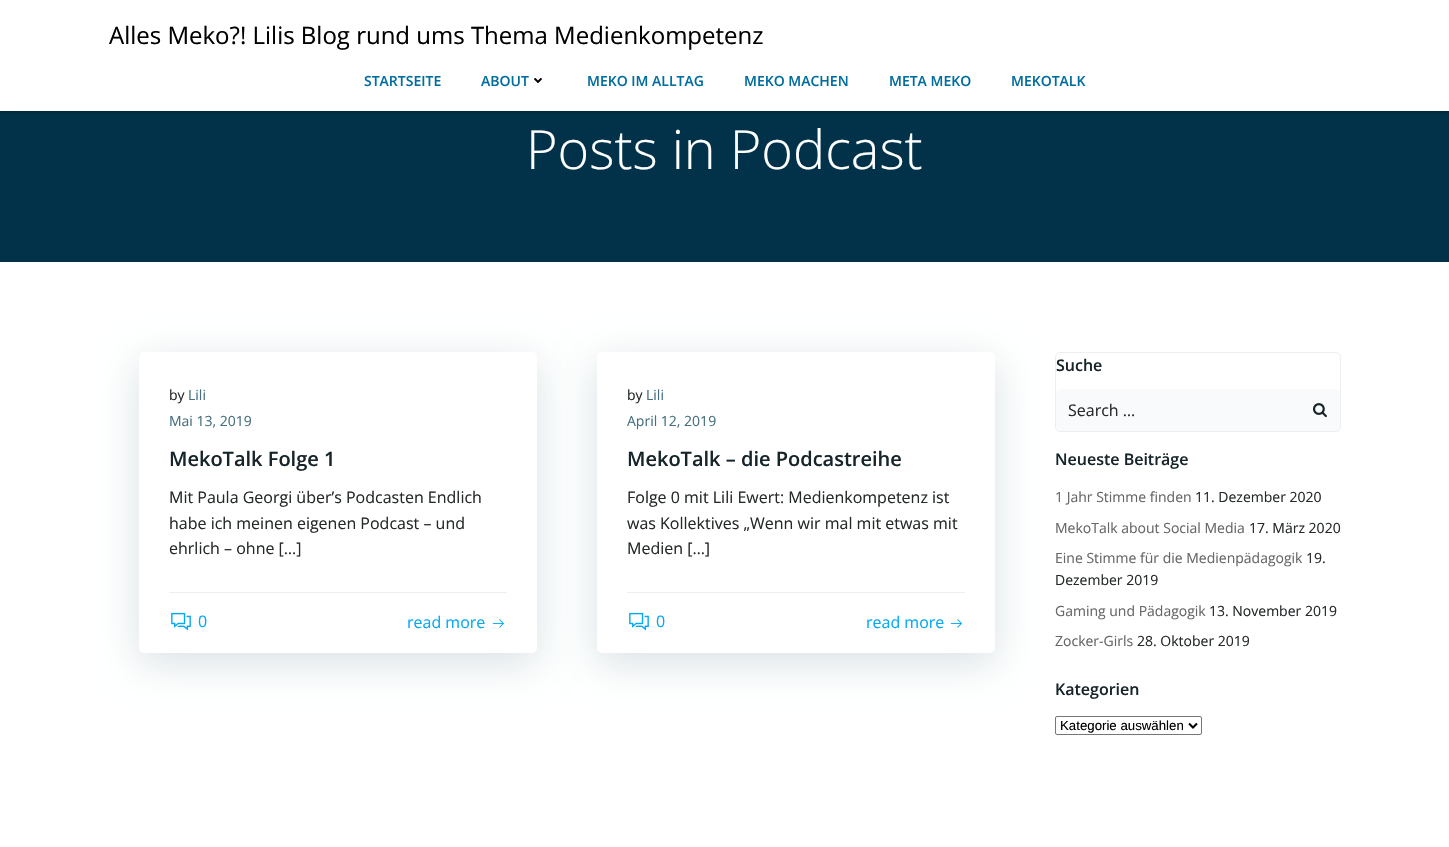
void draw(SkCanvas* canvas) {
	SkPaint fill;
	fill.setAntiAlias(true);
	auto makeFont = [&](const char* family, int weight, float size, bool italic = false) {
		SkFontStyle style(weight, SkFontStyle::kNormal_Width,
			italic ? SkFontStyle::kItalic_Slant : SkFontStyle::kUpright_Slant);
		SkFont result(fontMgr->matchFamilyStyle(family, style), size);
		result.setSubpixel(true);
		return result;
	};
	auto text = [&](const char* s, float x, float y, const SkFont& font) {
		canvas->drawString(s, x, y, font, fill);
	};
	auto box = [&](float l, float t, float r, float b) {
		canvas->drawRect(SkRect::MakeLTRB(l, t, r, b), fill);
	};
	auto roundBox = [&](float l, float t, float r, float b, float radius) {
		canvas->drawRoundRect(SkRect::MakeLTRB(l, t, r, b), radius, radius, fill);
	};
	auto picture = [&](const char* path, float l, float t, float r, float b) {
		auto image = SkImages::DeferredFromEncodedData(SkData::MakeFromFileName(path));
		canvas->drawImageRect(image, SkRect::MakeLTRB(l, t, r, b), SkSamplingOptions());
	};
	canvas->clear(0xFFFFFFFF);
	fill.setColor(0xFF013249);
	box(0, 111, 1449, 262);
	fill.setColor(0x80000000);
	fill.setMaskFilter(SkMaskFilter::MakeBlur(kNormal_SkBlurStyle, 2));
	canvas->drawRect(SkRect::MakeLTRB(0, 0, 1449, 111), fill);
	fill.setMaskFilter(nullptr);
	fill.setColor(0xFFFFFFFF);
	box(0, 0, 1449, 111);
	picture("image0.png", 534, 78, 542, 83);
	fill.setColor(0x2601334A);
	fill.setMaskFilter(SkMaskFilter::MakeBlur(kNormal_SkBlurStyle, 20));
	canvas->drawRoundRect(SkRect::MakeLTRB(139, 362, 537, 663), 5, 5, fill);
	fill.setMaskFilter(nullptr);
	fill.setColor(0xFFFFFFFF);
	roundBox(139, 352, 537, 653, 5);
	fill.setColor(0xFFEEEEEE);
	box(169, 592, 507, 593);
	picture("image1.png", 171, 612, 191, 631);
	picture("image2.png", 492, 619, 504, 628);
	fill.setColor(0x2601334A);
	fill.setMaskFilter(SkMaskFilter::MakeBlur(kNormal_SkBlurStyle, 20));
	canvas->drawRoundRect(SkRect::MakeLTRB(597, 362, 995, 663), 5, 5, fill);
	fill.setMaskFilter(nullptr);
	fill.setColor(0xFFFFFFFF);
	roundBox(597, 352, 995, 653, 5);
	fill.setColor(0xFFEEEEEE);
	box(627, 592, 965, 593);
	picture("image1.png", 629, 612, 649, 631);
	picture("image2.png", 950, 619, 962, 628);
	fill.setStyle(SkPaint::kStroke_Style);
	fill.setStrokeWidth(1);
	canvas->drawRoundRect(SkRect::MakeLTRB(1055.5f, 352.5f, 1340.5f, 431.5f), 4.5f, 4.5f, fill);
	fill.setStyle(SkPaint::kFill_Style);
	fill.setColor(0xFFF9FAFB);
	canvas->drawPath(SkPathBuilder().moveTo(1061, 389).lineTo(1300, 389).lineTo(1300, 431).lineTo(1061, 431).cubicTo(1058, 431, 1056, 429, 1056, 426).lineTo(1056, 394).cubicTo(1056, 391, 1058, 389, 1061, 389).close().detach(), fill);
	canvas->drawPath(SkPathBuilder().moveTo(1300, 389).lineTo(1335, 389).cubicTo(1338, 389, 1340, 391, 1340, 394).lineTo(1340, 426).cubicTo(1340, 429, 1338, 431, 1335, 431).lineTo(1300, 431).close().detach(), fill);
	picture("image3.png", 1313, 403, 1327, 418);
	fill.setStyle(SkPaint::kStroke_Style);
	fill.setColor(0xFF767676);
	canvas->drawRoundRect(SkRect::MakeLTRB(1055.5f, 716.5f, 1201.5f, 734.5f), 1.5f, 1.5f, fill);
	fill.setStrokeWidth(2);
	fill.setColor(0xFF000000);
	canvas->drawPath(SkPathBuilder().moveTo(1189, 723.5f).lineTo(1193, 727.5f).lineTo(1197, 723.5f).detach(), fill);
	auto font1 = makeFont("Open Sans", 400, 24);
	fill.setStyle(SkPaint::kFill_Style);
	text("Alles Meko?! Lilis Blog rund ums Thema Medienkompetenz", 109, 44, font1);
	auto font2 = makeFont("Open Sans", 600, 14);
	fill.setColor(0xFF026E9F);
	text("STARTSEITE", 364, 86, font2);
	text("ABOUT", 481, 86, font2);
	text("MEKO IM ALLTAG", 587, 86, font2);
	text("MEKO MACHEN", 744, 86, font2);
	text("META MEKO", 889, 86, font2);
	text("MEKOTALK", 1011, 86, font2);
	auto font3 = makeFont("Open Sans", 300, 54);
	fill.setColor(0xFFFFFFFF);
	text("Posts in Podcast", 526, 169, font3);
	auto font4 = makeFont("Open Sans", 400, 14);
	fill.setColor(0xFF25292A);
	text("by", 169, 400, font4);
	fill.setColor(0xFF46707F);
	text("Lili", 188, 400, font4);
	text("Mai 13, 2019", 169, 426, font4);
	auto font5 = makeFont("Open Sans", 600, 20);
	fill.setColor(0xFF17252A);
	text("MekoTalk Folge 1", 169, 466, font5);
	auto font6 = makeFont("Open Sans", 400, 16);
	fill.setColor(0xFF25292A);
	text("Mit Paula Georgi über’s Podcasten Endlich", 169, 503, font6);
	text("habe ich meinen eigenen Podcast – und", 169, 529, font6);
	text("ehrlich – ohne […]", 169, 554, font6);
	fill.setColor(0xFF03A9F4);
	text("0", 198, 627, font6);
	text("read more", 407, 628, font6);
	fill.setColor(0xFF25292A);
	text("by", 627, 400, font4);
	fill.setColor(0xFF46707F);
	text("Lili", 646, 400, font4);
	text("April 12, 2019", 627, 426, font4);
	fill.setColor(0xFF17252A);
	text("MekoTalk – die Podcastreihe", 627, 466, font5);
	fill.setColor(0xFF25292A);
	text("Folge 0 mit Lili Ewert: Medienkompetenz ist", 627, 503, font6);
	text("was Kollektives „Wenn wir mal mit etwas mit", 627, 529, font6);
	text("Medien […]", 627, 554, font6);
	fill.setColor(0xFF03A9F4);
	text("0", 656, 627, font6);
	text("read more", 866, 628, font6);
	auto font7 = makeFont("Open Sans", 600, 16);
	fill.setColor(0xFF17252A);
	text("Suche", 1056, 371, font7);
	fill.setColor(0xFF25292A);
	text("Search …", 1068, 416, font6);
	fill.setColor(0xFF17252A);
	text("Neueste Beiträge", 1055, 465, font7);
	fill.setColor(0xFF666666);
	text("1 Jahr Stimme finden", 1055, 502, font4);
	fill.setColor(0xFF25292A);
	text("11. Dezember 2020", 1195, 502, font4);
	fill.setColor(0xFF666666);
	text("MekoTalk about Social Media", 1055, 533, font4);
	fill.setColor(0xFF25292A);
	text("17. März 2020", 1249, 533, font4);
	fill.setColor(0xFF666666);
	text("Eine Stimme für die Medienpädagogik", 1055, 563, font4);
	fill.setColor(0xFF25292A);
	text("19.", 1306, 563, font4);
	text("Dezember 2019", 1055, 585, font4);
	fill.setColor(0xFF666666);
	text("Gaming und Pädagogik", 1055, 616, font4);
	fill.setColor(0xFF25292A);
	text("13. November 2019", 1209, 616, font4);
	fill.setColor(0xFF666666);
	text("Zocker-Girls", 1055, 646, font4);
	fill.setColor(0xFF25292A);
	text("28. Oktober 2019", 1137, 646, font4);
	fill.setColor(0xFF17252A);
	text("Kategorien", 1055, 695, font7);
	auto font8 = makeFont("Liberation Sans", 400, 13.25f);
	fill.setColor(0xFF000000);
	text("Kategorie auswählen", 1060, 730, font8);
}
